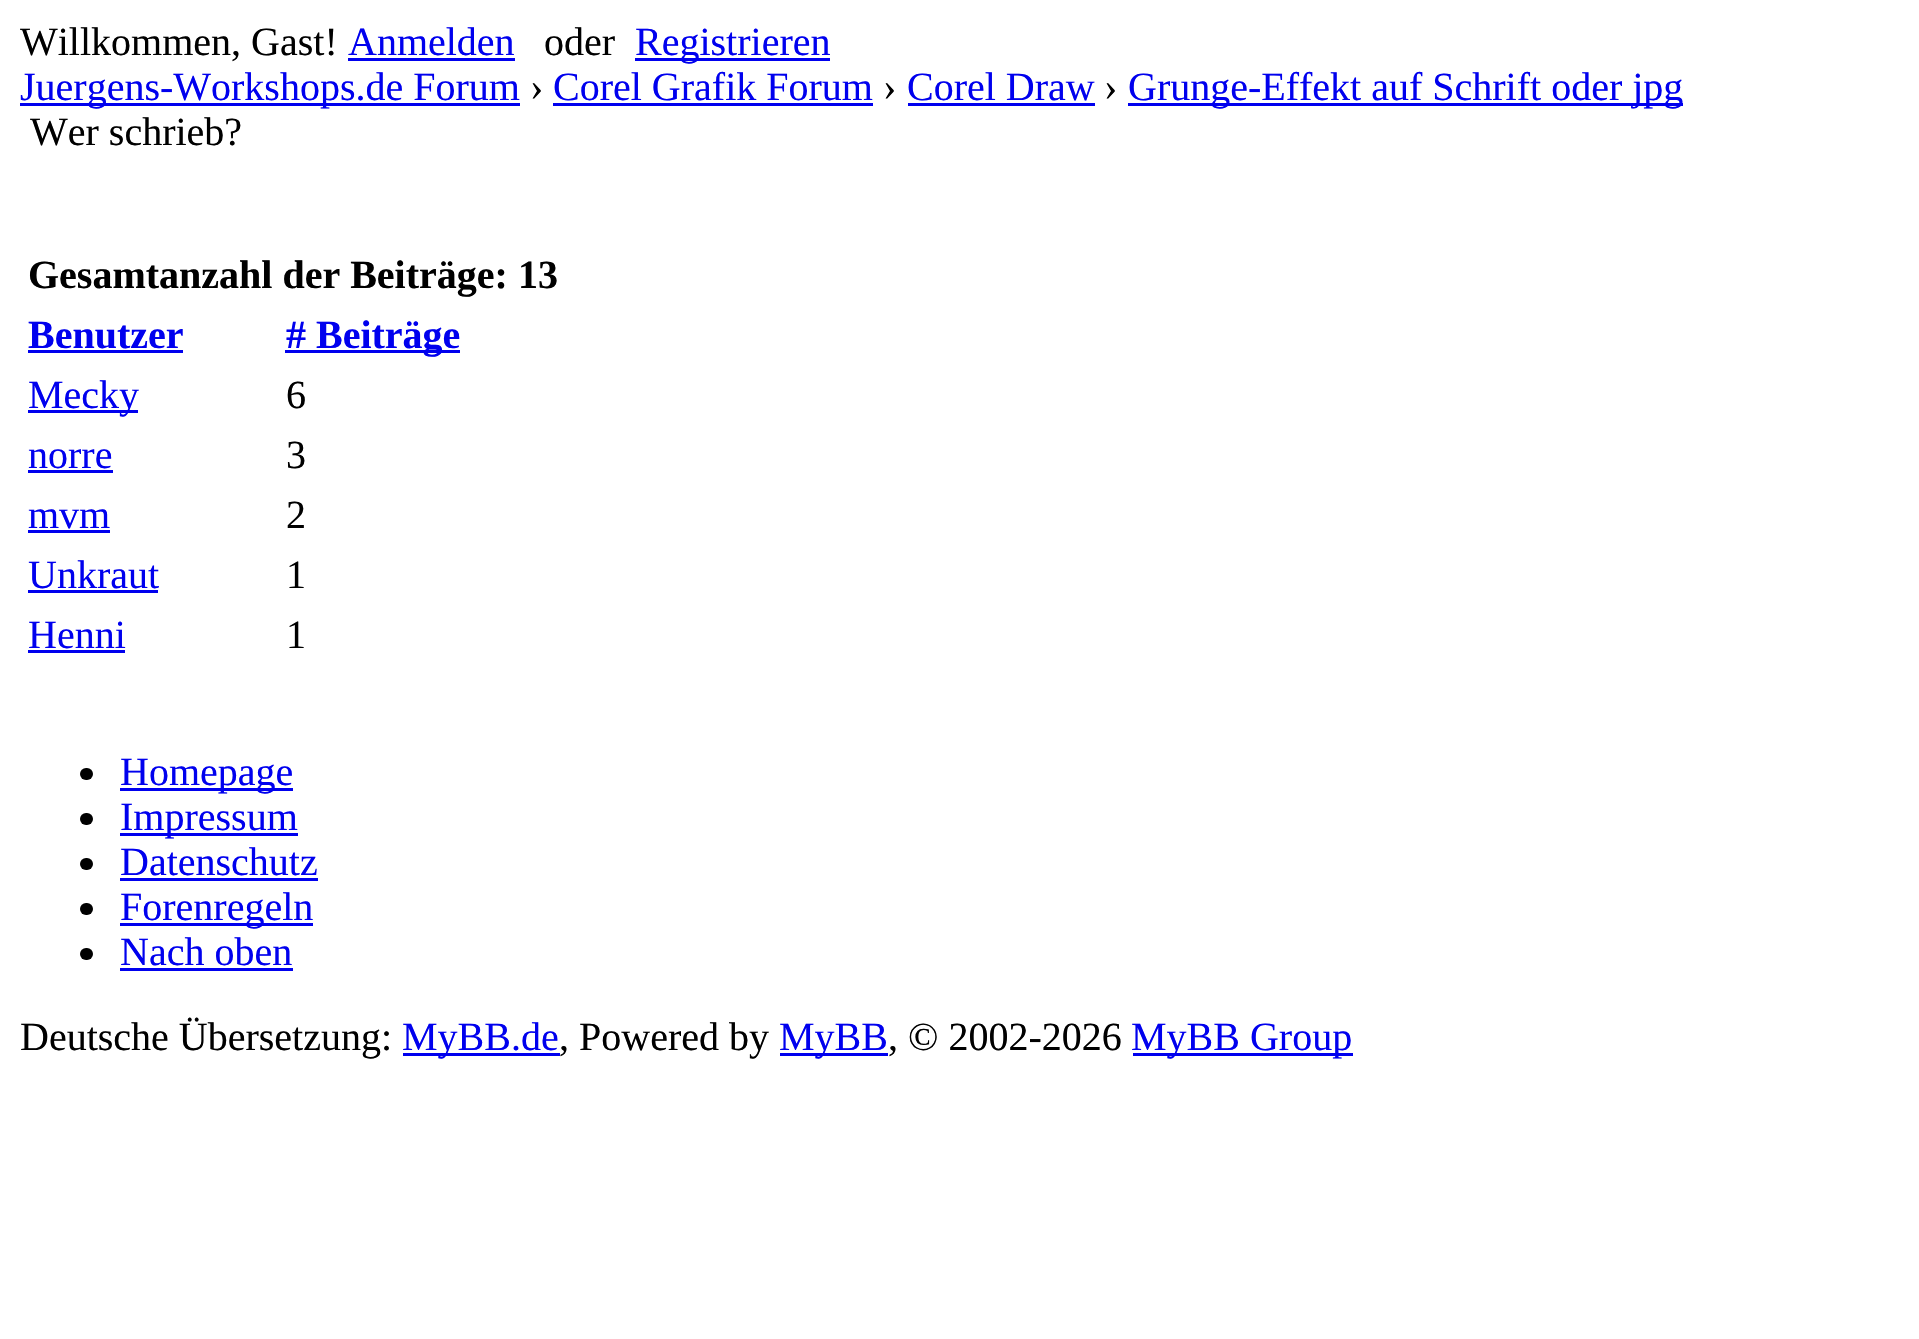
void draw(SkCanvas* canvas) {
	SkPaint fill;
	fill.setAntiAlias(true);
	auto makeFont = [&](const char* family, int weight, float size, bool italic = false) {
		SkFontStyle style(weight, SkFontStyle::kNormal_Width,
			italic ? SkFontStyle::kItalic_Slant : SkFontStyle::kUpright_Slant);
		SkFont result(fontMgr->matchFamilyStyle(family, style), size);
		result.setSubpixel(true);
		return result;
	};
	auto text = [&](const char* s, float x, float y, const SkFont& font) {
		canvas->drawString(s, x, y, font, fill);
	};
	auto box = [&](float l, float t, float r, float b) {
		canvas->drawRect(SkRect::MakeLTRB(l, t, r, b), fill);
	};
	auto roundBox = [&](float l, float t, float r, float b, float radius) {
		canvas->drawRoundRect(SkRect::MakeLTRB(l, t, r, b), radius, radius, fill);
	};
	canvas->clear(0xFFFFFFFF);
	fill.setColor(0xFF0000EE);
	box(348, 58, 515, 61);
	box(635, 58, 830, 61);
	box(20, 103, 520, 106);
	box(553, 103, 873, 106);
	box(908, 103, 1095, 106);
	box(1128, 103, 1683, 106);
	box(28, 350, 183, 353);
	box(285, 350, 460, 353);
	box(28, 410, 138, 413);
	box(28, 470, 113, 473);
	box(28, 530, 110, 533);
	box(28, 590, 158, 593);
	box(28, 650, 125, 653);
	fill.setColor(0xFF000000);
	roundBox(80, 768, 93, 780, 6);
	fill.setColor(0xFF0000EE);
	box(120, 788, 293, 791);
	fill.setColor(0xFF000000);
	roundBox(80, 813, 93, 825, 6);
	fill.setColor(0xFF0000EE);
	box(120, 833, 298, 836);
	fill.setColor(0xFF000000);
	roundBox(80, 858, 93, 870, 6);
	fill.setColor(0xFF0000EE);
	box(120, 878, 318, 881);
	fill.setColor(0xFF000000);
	roundBox(80, 903, 93, 915, 6);
	fill.setColor(0xFF0000EE);
	box(120, 923, 313, 926);
	fill.setColor(0xFF000000);
	roundBox(80, 948, 93, 960, 6);
	fill.setColor(0xFF0000EE);
	box(120, 968, 293, 971);
	box(403, 1053, 560, 1056);
	box(780, 1053, 888, 1056);
	box(1133, 1053, 1353, 1056);
	auto font1 = makeFont("Liberation Serif", 400, 40);
	fill.setColor(0xFF000000);
	text("Willkommen, Gast!", 20, 55, font1);
	fill.setColor(0xFF0000EE);
	text("Anmelden", 348, 55, font1);
	fill.setColor(0xFF000000);
	text("oder", 544, 55, font1);
	fill.setColor(0xFF0000EE);
	text("Registrieren", 635, 55, font1);
	text("Juergens-Workshops.de Forum", 20, 100, font1);
	fill.setColor(0xFF000000);
	text("›", 530, 100, font1);
	fill.setColor(0xFF0000EE);
	text("Corel Grafik Forum", 553, 100, font1);
	fill.setColor(0xFF000000);
	text("›", 883, 100, font1);
	fill.setColor(0xFF0000EE);
	text("Corel Draw", 907, 100, font1);
	fill.setColor(0xFF000000);
	text("›", 1104, 100, font1);
	fill.setColor(0xFF0000EE);
	text("Grunge-Effekt auf Schrift oder jpg", 1128, 100, font1);
	fill.setColor(0xFF000000);
	text("Wer schrieb?", 30, 145, font1);
	auto font2 = makeFont("Liberation Serif", 700, 40);
	text("Gesamtanzahl der Beiträge: 13", 28, 288, font2);
	fill.setColor(0xFF0000EE);
	text("Benutzer", 28, 348, font2);
	text("# Beiträge", 286, 348, font2);
	text("Mecky", 28, 408, font1);
	fill.setColor(0xFF000000);
	text("6", 286, 408, font1);
	fill.setColor(0xFF0000EE);
	text("norre", 28, 468, font1);
	fill.setColor(0xFF000000);
	text("3", 286, 468, font1);
	fill.setColor(0xFF0000EE);
	text("mvm", 28, 528, font1);
	fill.setColor(0xFF000000);
	text("2", 286, 528, font1);
	fill.setColor(0xFF0000EE);
	text("Unkraut", 28, 588, font1);
	fill.setColor(0xFF000000);
	text("1", 286, 588, font1);
	fill.setColor(0xFF0000EE);
	text("Henni", 28, 648, font1);
	fill.setColor(0xFF000000);
	text("1", 286, 648, font1);
	fill.setColor(0xFF0000EE);
	text("Homepage", 120, 785, font1);
	text("Impressum", 120, 830, font1);
	text("Datenschutz", 120, 875, font1);
	text("Forenregeln", 120, 920, font1);
	text("Nach oben", 120, 965, font1);
	fill.setColor(0xFF000000);
	text("Deutsche Übersetzung:", 20, 1050, font1);
	fill.setColor(0xFF0000EE);
	text("MyBB.de", 402, 1050, font1);
	fill.setColor(0xFF000000);
	text(", Powered by", 559, 1050, font1);
	fill.setColor(0xFF0000EE);
	text("MyBB", 779, 1050, font1);
	fill.setColor(0xFF000000);
	text(", © 2002-2026", 888, 1050, font1);
	fill.setColor(0xFF0000EE);
	text("MyBB Group", 1131, 1050, font1);
}
